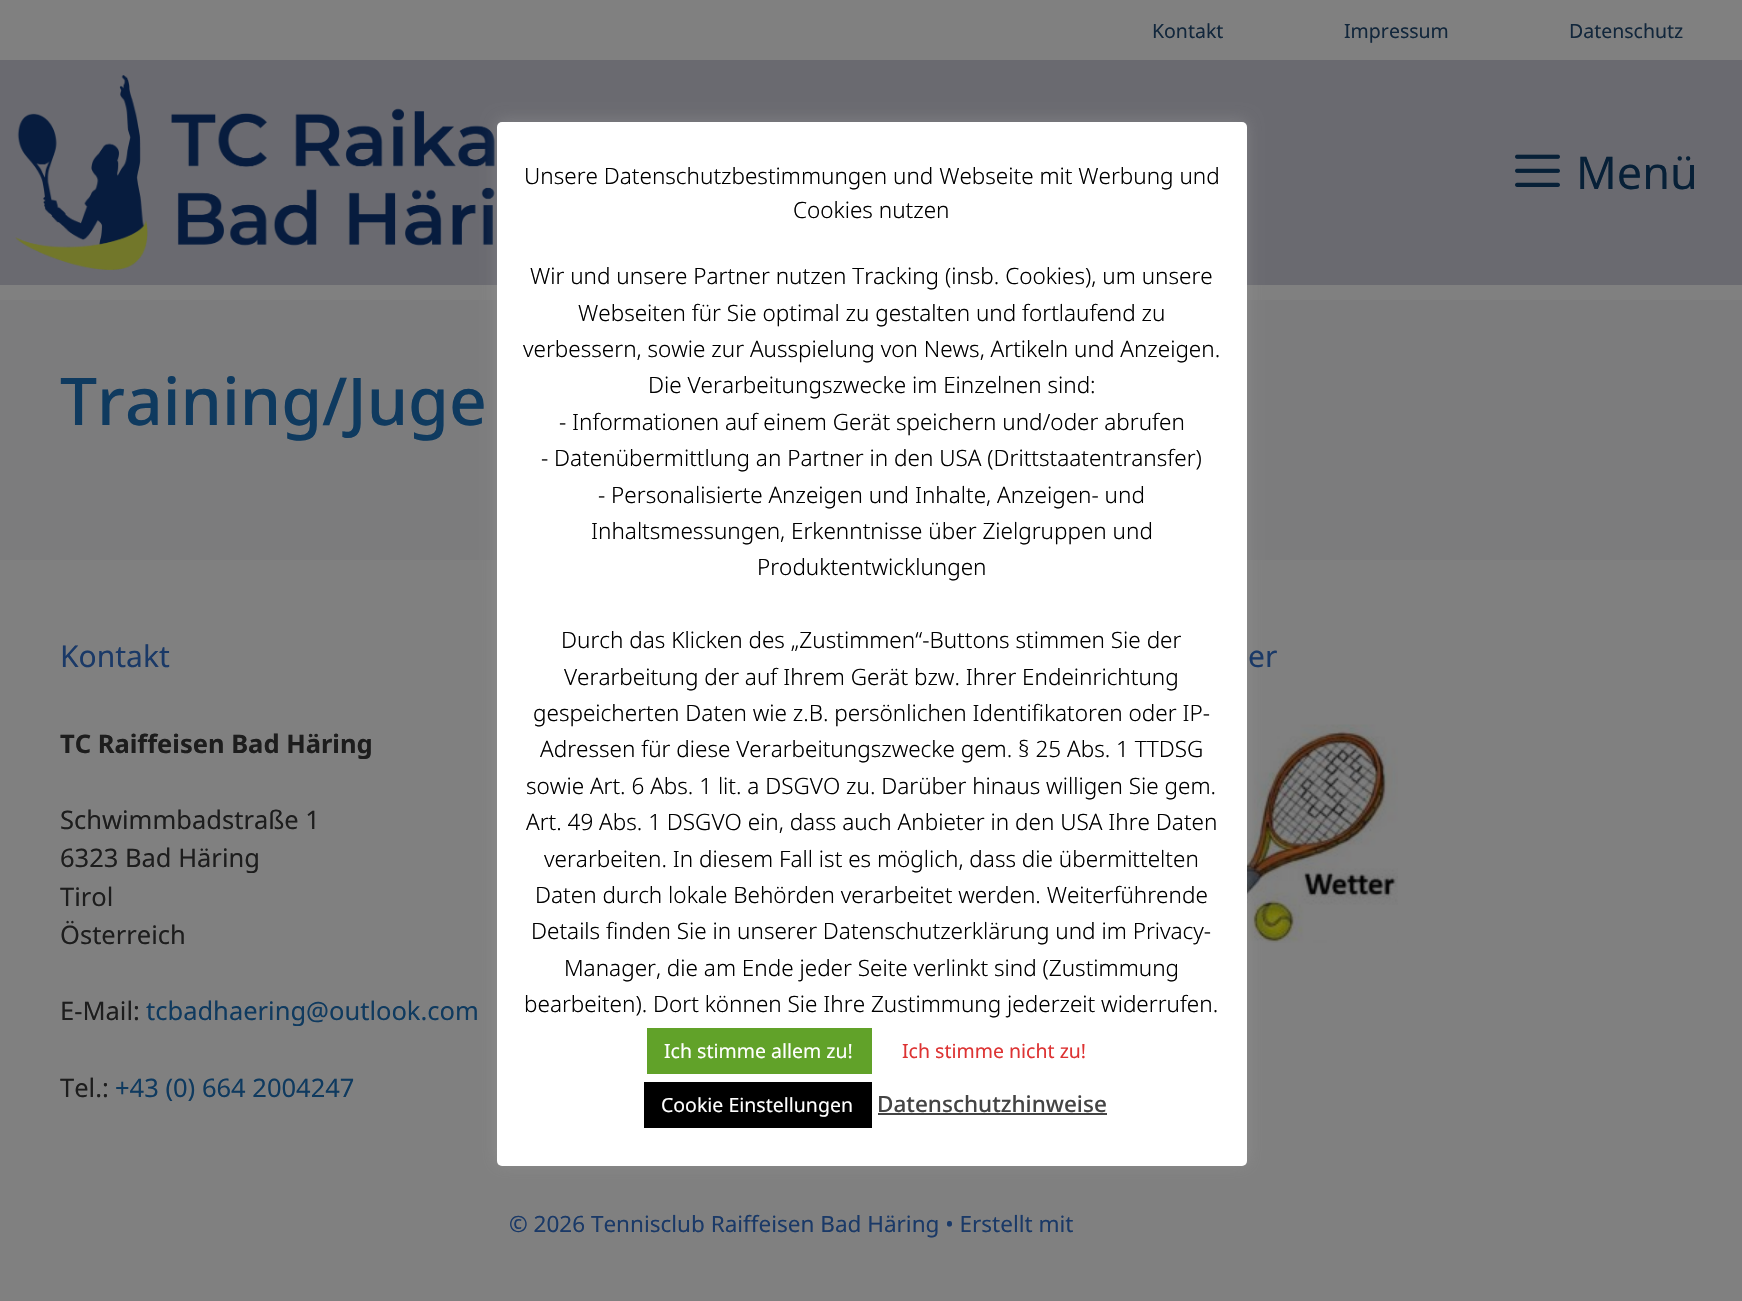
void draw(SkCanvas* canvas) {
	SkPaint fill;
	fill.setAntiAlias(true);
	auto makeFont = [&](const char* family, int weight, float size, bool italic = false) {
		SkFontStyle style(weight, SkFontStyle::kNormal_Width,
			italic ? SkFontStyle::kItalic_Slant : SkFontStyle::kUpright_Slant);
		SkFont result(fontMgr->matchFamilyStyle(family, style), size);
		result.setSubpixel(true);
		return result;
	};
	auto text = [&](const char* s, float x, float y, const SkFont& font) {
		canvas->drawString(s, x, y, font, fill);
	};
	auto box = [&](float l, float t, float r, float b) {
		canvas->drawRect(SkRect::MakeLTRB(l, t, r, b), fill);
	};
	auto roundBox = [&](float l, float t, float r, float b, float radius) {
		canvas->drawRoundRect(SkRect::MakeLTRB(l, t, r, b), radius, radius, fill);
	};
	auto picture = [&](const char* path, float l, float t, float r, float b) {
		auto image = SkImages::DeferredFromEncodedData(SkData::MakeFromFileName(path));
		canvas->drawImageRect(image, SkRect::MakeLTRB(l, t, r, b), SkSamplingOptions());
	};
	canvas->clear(0xFF808080);
	fill.setColor(0xFF7C7C7D);
	box(0, 300, 1742, 560);
	fill.setColor(0xFF6A6A70);
	box(0, 60, 1742, 285);
	picture("image0.png", 15, 75, 495, 270);
	picture("image2.png", 1247, 724, 1398, 943);
	fill.setColor(0x4DACABAB);
	fill.setMaskFilter(SkMaskFilter::MakeBlur(kNormal_SkBlurStyle, 7.5f));
	canvas->drawRoundRect(SkRect::MakeLTRB(497, 120, 1247, 1164), 5, 5, fill);
	fill.setMaskFilter(nullptr);
	fill.setColor(0xFFFFFFFF);
	roundBox(497, 122, 1247, 1166, 5);
	fill.setColor(0xFF61A229);
	box(647, 1028, 872, 1074);
	fill.setColor(0xFF000000);
	box(644, 1082, 872, 1128);
	fill.setColor(0xFF444444);
	box(878, 1113, 1107, 1115);
	picture("image1.png", 1515, 154, 1560, 187);
	auto font1 = makeFont("Noto Sans", 400, 19.5f);
	fill.setColor(0xFF12273C);
	text("Kontakt", 1152, 38, font1);
	text("Impressum", 1344, 38, font1);
	text("Datenschutz", 1569, 38, font1);
	auto font2 = makeFont("Noto Sans", 500, 66);
	fill.setColor(0xFF0F3A5F);
	text("Training/Juge", 60, 425, font2);
	auto font3 = makeFont("Noto Sans", 300, 22.5f);
	fill.setColor(0xFF000000);
	text("Unsere Datenschutzbestimmungen und Webseite mit Werbung und", 524, 184, font3);
	text("Cookies nutzen", 793, 218, font3);
	text("Wir und unsere Partner nutzen Tracking (insb. Cookies), um unsere", 530, 284, font3);
	text("Webseiten für Sie optimal zu gestalten und fortlaufend zu", 578, 321, font3);
	text("verbessern, sowie zur Ausspielung von News, Artikeln und Anzeigen.", 523, 357, font3);
	text("Die Verarbeitungszwecke im Einzelnen sind:", 648, 393, font3);
	text("- Informationen auf einem Gerät speichern und/oder abrufen", 559, 430, font3);
	text("- Datenübermittlung an Partner in den USA (Drittstaatentransfer)", 541, 466, font3);
	text("- Personalisierte Anzeigen und Inhalte, Anzeigen- und", 598, 503, font3);
	text("Inhaltsmessungen, Erkenntnisse über Zielgruppen und", 591, 539, font3);
	text("Produktentwicklungen", 757, 575, font3);
	text("Durch das Klicken des „Zustimmen“-Buttons stimmen Sie der", 561, 648, font3);
	text("Verarbeitung der auf Ihrem Gerät bzw. Ihrer Endeinrichtung", 564, 685, font3);
	text("gespeicherten Daten wie z.B. persönlichen Identifikatoren oder IP-", 533, 721, font3);
	text("Adressen für diese Verarbeitungszwecke gem. § 25 Abs. 1 TTDSG", 540, 757, font3);
	text("sowie Art. 6 Abs. 1 lit. a DSGVO zu. Darüber hinaus willigen Sie gem.", 526, 794, font3);
	text("Art. 49 Abs. 1 DSGVO ein, dass auch Anbieter in den USA Ihre Daten", 526, 830, font3);
	text("verarbeiten. In diesem Fall ist es möglich, dass die übermittelten", 544, 867, font3);
	text("Daten durch lokale Behörden verarbeitet werden. Weiterführende", 535, 903, font3);
	text("Details finden Sie in unserer Datenschutzerklärung und im Privacy-", 531, 939, font3);
	text("Manager, die am Ende jeder Seite verlinkt sind (Zustimmung", 564, 976, font3);
	text("bearbeiten). Dort können Sie Ihre Zustimmung jederzeit widerrufen.", 524, 1012, font3);
	fill.setColor(0xFFFFFFFF);
	text("Ich stimme allem zu!", 664, 1058, font1);
	fill.setColor(0xFFDD3333);
	text("Ich stimme nicht zu!", 902, 1058, font1);
	fill.setColor(0xFFFFFFFF);
	text("Cookie Einstellungen", 661, 1112, font1);
	auto font4 = makeFont("Noto Sans", 500, 22.5f);
	fill.setColor(0xFF444444);
	text("Datenschutzhinweise", 877, 1112, font4);
	auto font5 = makeFont("Noto Sans", 400, 45);
	fill.setColor(0xFF072037);
	text("Menü", 1576, 189, font5);
	auto font6 = makeFont("Noto Sans", 400, 30);
	fill.setColor(0xFF1A3967);
	text("Kontakt", 60, 667, font6);
	auto font7 = makeFont("Noto Sans", 700, 25.5f);
	fill.setColor(0xFF1D1D1D);
	text("TC Raiffeisen Bad Häring", 60, 753, font7);
	auto font8 = makeFont("Noto Sans", 400, 25.5f);
	text("Schwimmbadstraße 1", 60, 829, font8);
	text("6323 Bad Häring", 60, 867, font8);
	text("Tirol", 60, 906, font8);
	text("Österreich", 60, 944, font8);
	text("E-Mail:", 60, 1020, font8);
	fill.setColor(0xFF0F3A5F);
	text("tcbadhaering@outlook.com", 146, 1020, font8);
	fill.setColor(0xFF1D1D1D);
	text("Tel.:", 60, 1097, font8);
	fill.setColor(0xFF0F3A5F);
	text("+43 (0) 664 2004247", 115, 1097, font8);
	fill.setColor(0xFF1A3967);
	text("er", 1248, 667, font6);
	auto font9 = makeFont("Noto Sans", 400, 22.5f);
	text("© 2026 Tennisclub Raiffeisen Bad Häring • Erstellt mit", 509, 1232, font9);
}
